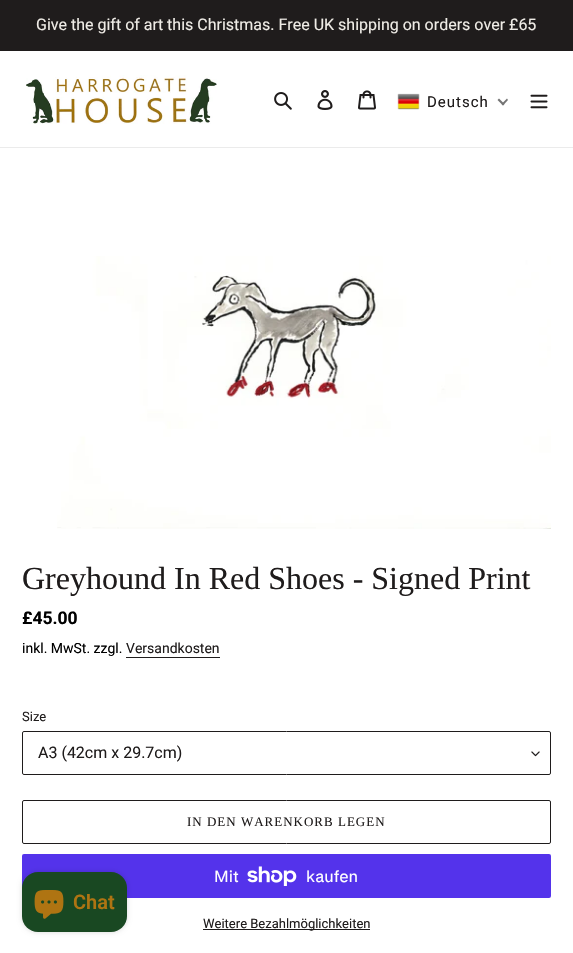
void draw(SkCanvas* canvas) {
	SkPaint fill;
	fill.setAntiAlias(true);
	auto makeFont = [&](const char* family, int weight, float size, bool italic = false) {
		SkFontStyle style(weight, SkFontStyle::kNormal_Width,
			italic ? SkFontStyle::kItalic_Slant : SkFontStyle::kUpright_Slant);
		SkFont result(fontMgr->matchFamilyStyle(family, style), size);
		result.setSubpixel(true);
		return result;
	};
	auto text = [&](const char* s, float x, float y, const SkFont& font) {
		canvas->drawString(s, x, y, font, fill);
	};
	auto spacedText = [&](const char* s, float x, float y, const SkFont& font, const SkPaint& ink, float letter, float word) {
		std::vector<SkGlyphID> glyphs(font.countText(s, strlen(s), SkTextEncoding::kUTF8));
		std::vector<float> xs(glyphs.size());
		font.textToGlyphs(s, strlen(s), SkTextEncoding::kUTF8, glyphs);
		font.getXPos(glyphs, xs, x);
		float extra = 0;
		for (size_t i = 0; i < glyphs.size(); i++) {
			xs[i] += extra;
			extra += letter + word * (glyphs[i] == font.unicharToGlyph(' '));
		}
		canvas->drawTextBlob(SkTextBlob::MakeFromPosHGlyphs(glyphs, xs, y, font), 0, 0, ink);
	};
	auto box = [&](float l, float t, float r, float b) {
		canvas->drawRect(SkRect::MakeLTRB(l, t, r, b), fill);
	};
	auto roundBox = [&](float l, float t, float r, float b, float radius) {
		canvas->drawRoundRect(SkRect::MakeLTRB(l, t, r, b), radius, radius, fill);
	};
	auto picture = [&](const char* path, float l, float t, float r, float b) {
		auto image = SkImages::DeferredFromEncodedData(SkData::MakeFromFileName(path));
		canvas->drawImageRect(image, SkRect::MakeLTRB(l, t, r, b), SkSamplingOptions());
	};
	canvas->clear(0xFFFFFFFF);
	fill.setColor(0xFF1F1C1C);
	box(0, 0, 573, 51);
	fill.setColor(0xFFEBEBEB);
	box(0, 147, 573, 148);
	picture("image0.png", 26, 75, 217, 124);
	picture("image1.png", 274, 92, 292, 110);
	picture("image2.png", 317, 90, 333, 110);
	picture("image3.png", 358, 90, 376, 110);
	picture("image4.png", 397, 93, 420, 110);
	fill.setColor(0xFF747474);
	canvas->drawPath(SkPathBuilder().moveTo(507, 98.5f).lineTo(508, 100).lineTo(503, 105.5f).lineTo(501.5f, 104).close().detach(), fill);
	canvas->drawPath(SkPathBuilder().moveTo(499, 98.5f).lineTo(504.5f, 104).lineTo(503, 105.5f).lineTo(497.5f, 100).close().detach(), fill);
	picture("image5.png", 530, 94, 548, 109);
	picture("image6.png", 57, 256, 551, 529);
	fill.setColor(0xFF1F1C1C);
	box(126, 657, 220, 658);
	picture("image7.png", 531, 751, 540, 757);
	fill.setStyle(SkPaint::kStroke_Style);
	fill.setStrokeWidth(1);
	canvas->drawRoundRect(SkRect::MakeLTRB(22.5f, 731.5f, 550.5f, 774.5f), 1.5f, 1.5f, fill);
	canvas->drawRoundRect(SkRect::MakeLTRB(22.5f, 800.5f, 550.5f, 843.5f), 1.5f, 1.5f, fill);
	fill.setStyle(SkPaint::kFill_Style);
	fill.setColor(0xFF5433EB);
	roundBox(22, 854, 551, 898, 2);
	picture("image8.png", 247, 866, 297, 886);
	fill.setColor(0xFF1F1C1C);
	box(203, 929, 370, 930);
	fill.setColor(0x26000000);
	fill.setMaskFilter(SkMaskFilter::MakeBlur(kNormal_SkBlurStyle, 2.5f));
	canvas->drawRoundRect(SkRect::MakeLTRB(22, 872, 127, 932), 16, 16, fill);
	fill.setMaskFilter(nullptr);
	fill.setColor(0xFF194822);
	roundBox(22, 872, 127, 932, 16);
	picture("image9.png", 34, 890, 64, 919);
	auto font1 = makeFont("Roboto", 400, 16);
	fill.setColor(0xFFEFECE6);
	text("Give the gift of art this Christmas. Free UK shipping on orders over £65", 36, 30, font1);
	auto font2 = makeFont("Roboto", 400, 15);
	fill.setColor(0xFF1F1C1C);
	spacedText("Deutsch", 427, 107, font2, fill, 1, 0);
	auto font3 = makeFont("Liberation Serif", 400, 32);
	text("Greyhound In Red Shoes - Signed Print", 22, 589, font3);
	auto font4 = makeFont("Roboto", 700, 17.5f);
	fill.setColor(0xFF000000);
	text("£45.00", 22, 624, font4);
	auto font5 = makeFont("Roboto", 400, 14);
	text("inkl. MwSt. zzgl.", 22, 653, font5);
	fill.setColor(0xFF1F1C1C);
	text("Versandkosten", 126, 653, font5);
	auto font6 = makeFont("Roboto", 400, 13);
	text("Size", 22, 721, font6);
	text("A3 (42cm x 29.7cm)", 38, 758, font1);
	auto font7 = makeFont("Liberation Serif", 400, 13);
	spacedText("IN DEN WARENKORB LEGEN", 187, 826, font7, fill, 1, 0);
	auto font8 = makeFont("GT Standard", 400, 16);
	fill.setColor(0xFFFFFFFF);
	text("Mit", 214, 882, font8);
	text("kaufen", 306, 882, font8);
	fill.setColor(0xFF1F1C1C);
	text("Weitere Bezahlmöglichkeiten", 203, 928, font6);
	auto font9 = makeFont("Roboto", 600, 20);
	fill.setColor(0xFFAF7412);
	text("Chat", 73, 909, font9);
}
